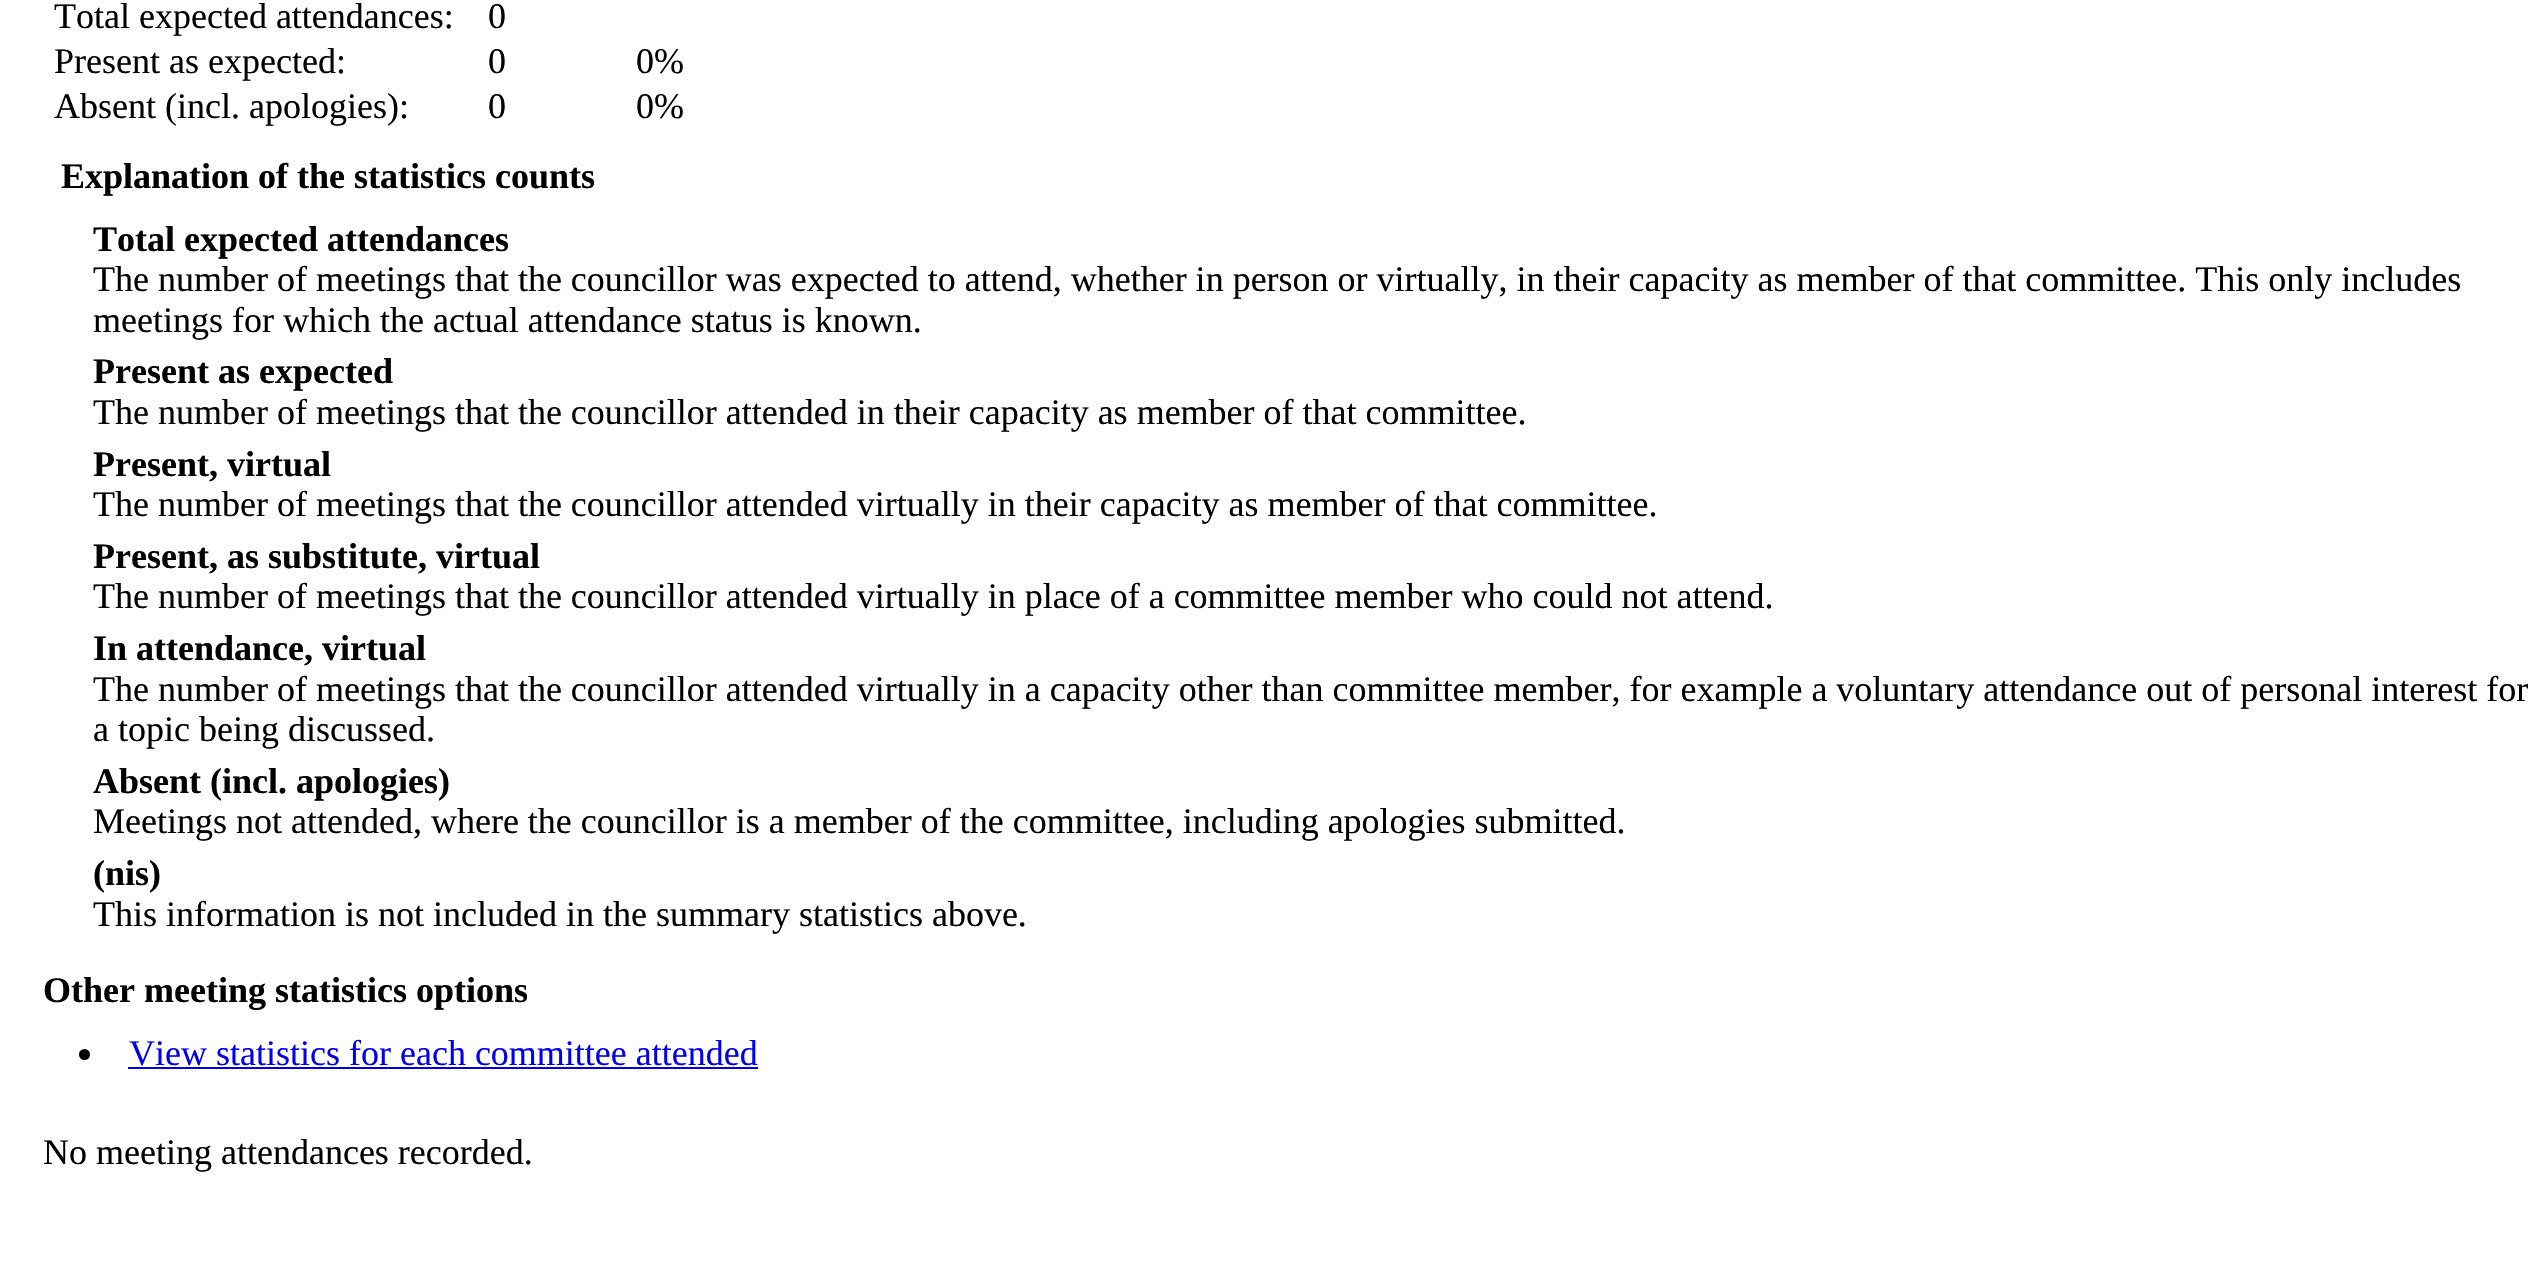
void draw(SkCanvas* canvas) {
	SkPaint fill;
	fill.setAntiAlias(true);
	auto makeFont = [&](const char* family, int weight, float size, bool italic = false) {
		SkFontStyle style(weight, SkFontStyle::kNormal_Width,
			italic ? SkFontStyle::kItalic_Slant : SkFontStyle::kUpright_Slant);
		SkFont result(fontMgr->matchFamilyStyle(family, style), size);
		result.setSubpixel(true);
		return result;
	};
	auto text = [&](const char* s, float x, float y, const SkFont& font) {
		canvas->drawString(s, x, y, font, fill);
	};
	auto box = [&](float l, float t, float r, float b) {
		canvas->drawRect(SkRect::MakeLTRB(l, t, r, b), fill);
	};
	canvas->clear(0xFFFFFFFF);
	fill.setColor(0xFF000000);
	canvas->drawCircle(84.5f, 1054.5f, 5.5f, fill);
	fill.setColor(0xFF0000EE);
	box(128, 1067, 758, 1069);
	auto font1 = makeFont("Liberation Serif", 400, 36);
	fill.setColor(0xFF000000);
	text("Total expected attendances:", 54, 28, font1);
	text("0", 488, 28, font1);
	text("Present as expected:", 54, 73, font1);
	text("0", 488, 73, font1);
	text("0%", 636, 73, font1);
	text("Absent (incl. apologies):", 54, 118, font1);
	text("0", 488, 118, font1);
	text("0%", 636, 118, font1);
	auto font2 = makeFont("Liberation Serif", 700, 36);
	text("Explanation of the statistics counts", 61, 188, font2);
	text("Total expected attendances", 93, 251, font2);
	text("The number of meetings that the councillor was expected to attend, whether in person or virtually, in their capacity as member of that committee. This only includes", 93, 291, font1);
	text("meetings for which the actual attendance status is known.", 93, 332, font1);
	text("Present as expected", 93, 383, font2);
	text("The number of meetings that the councillor attended in their capacity as member of that committee.", 93, 424, font1);
	text("Present, virtual", 93, 476, font2);
	text("The number of meetings that the councillor attended virtually in their capacity as member of that committee.", 93, 516, font1);
	text("Present, as substitute, virtual", 93, 568, font2);
	text("The number of meetings that the councillor attended virtually in place of a committee member who could not attend.", 93, 608, font1);
	text("In attendance, virtual", 93, 660, font2);
	text("The number of meetings that the councillor attended virtually in a capacity other than committee member, for example a voluntary attendance out of personal interest for", 93, 701, font1);
	text("a topic being discussed.", 93, 741, font1);
	text("Absent (incl. apologies)", 93, 793, font2);
	text("Meetings not attended, where the councillor is a member of the committee, including apologies submitted.", 93, 833, font1);
	text("(nis)", 93, 885, font2);
	text("This information is not included in the summary statistics above.", 93, 926, font1);
	text("Other meeting statistics options", 43, 1002, font2);
	fill.setColor(0xFF0000EE);
	text("View statistics for each committee attended", 129, 1065, font1);
	fill.setColor(0xFF000000);
	text("No meeting attendances recorded.", 43, 1164, font1);
}
